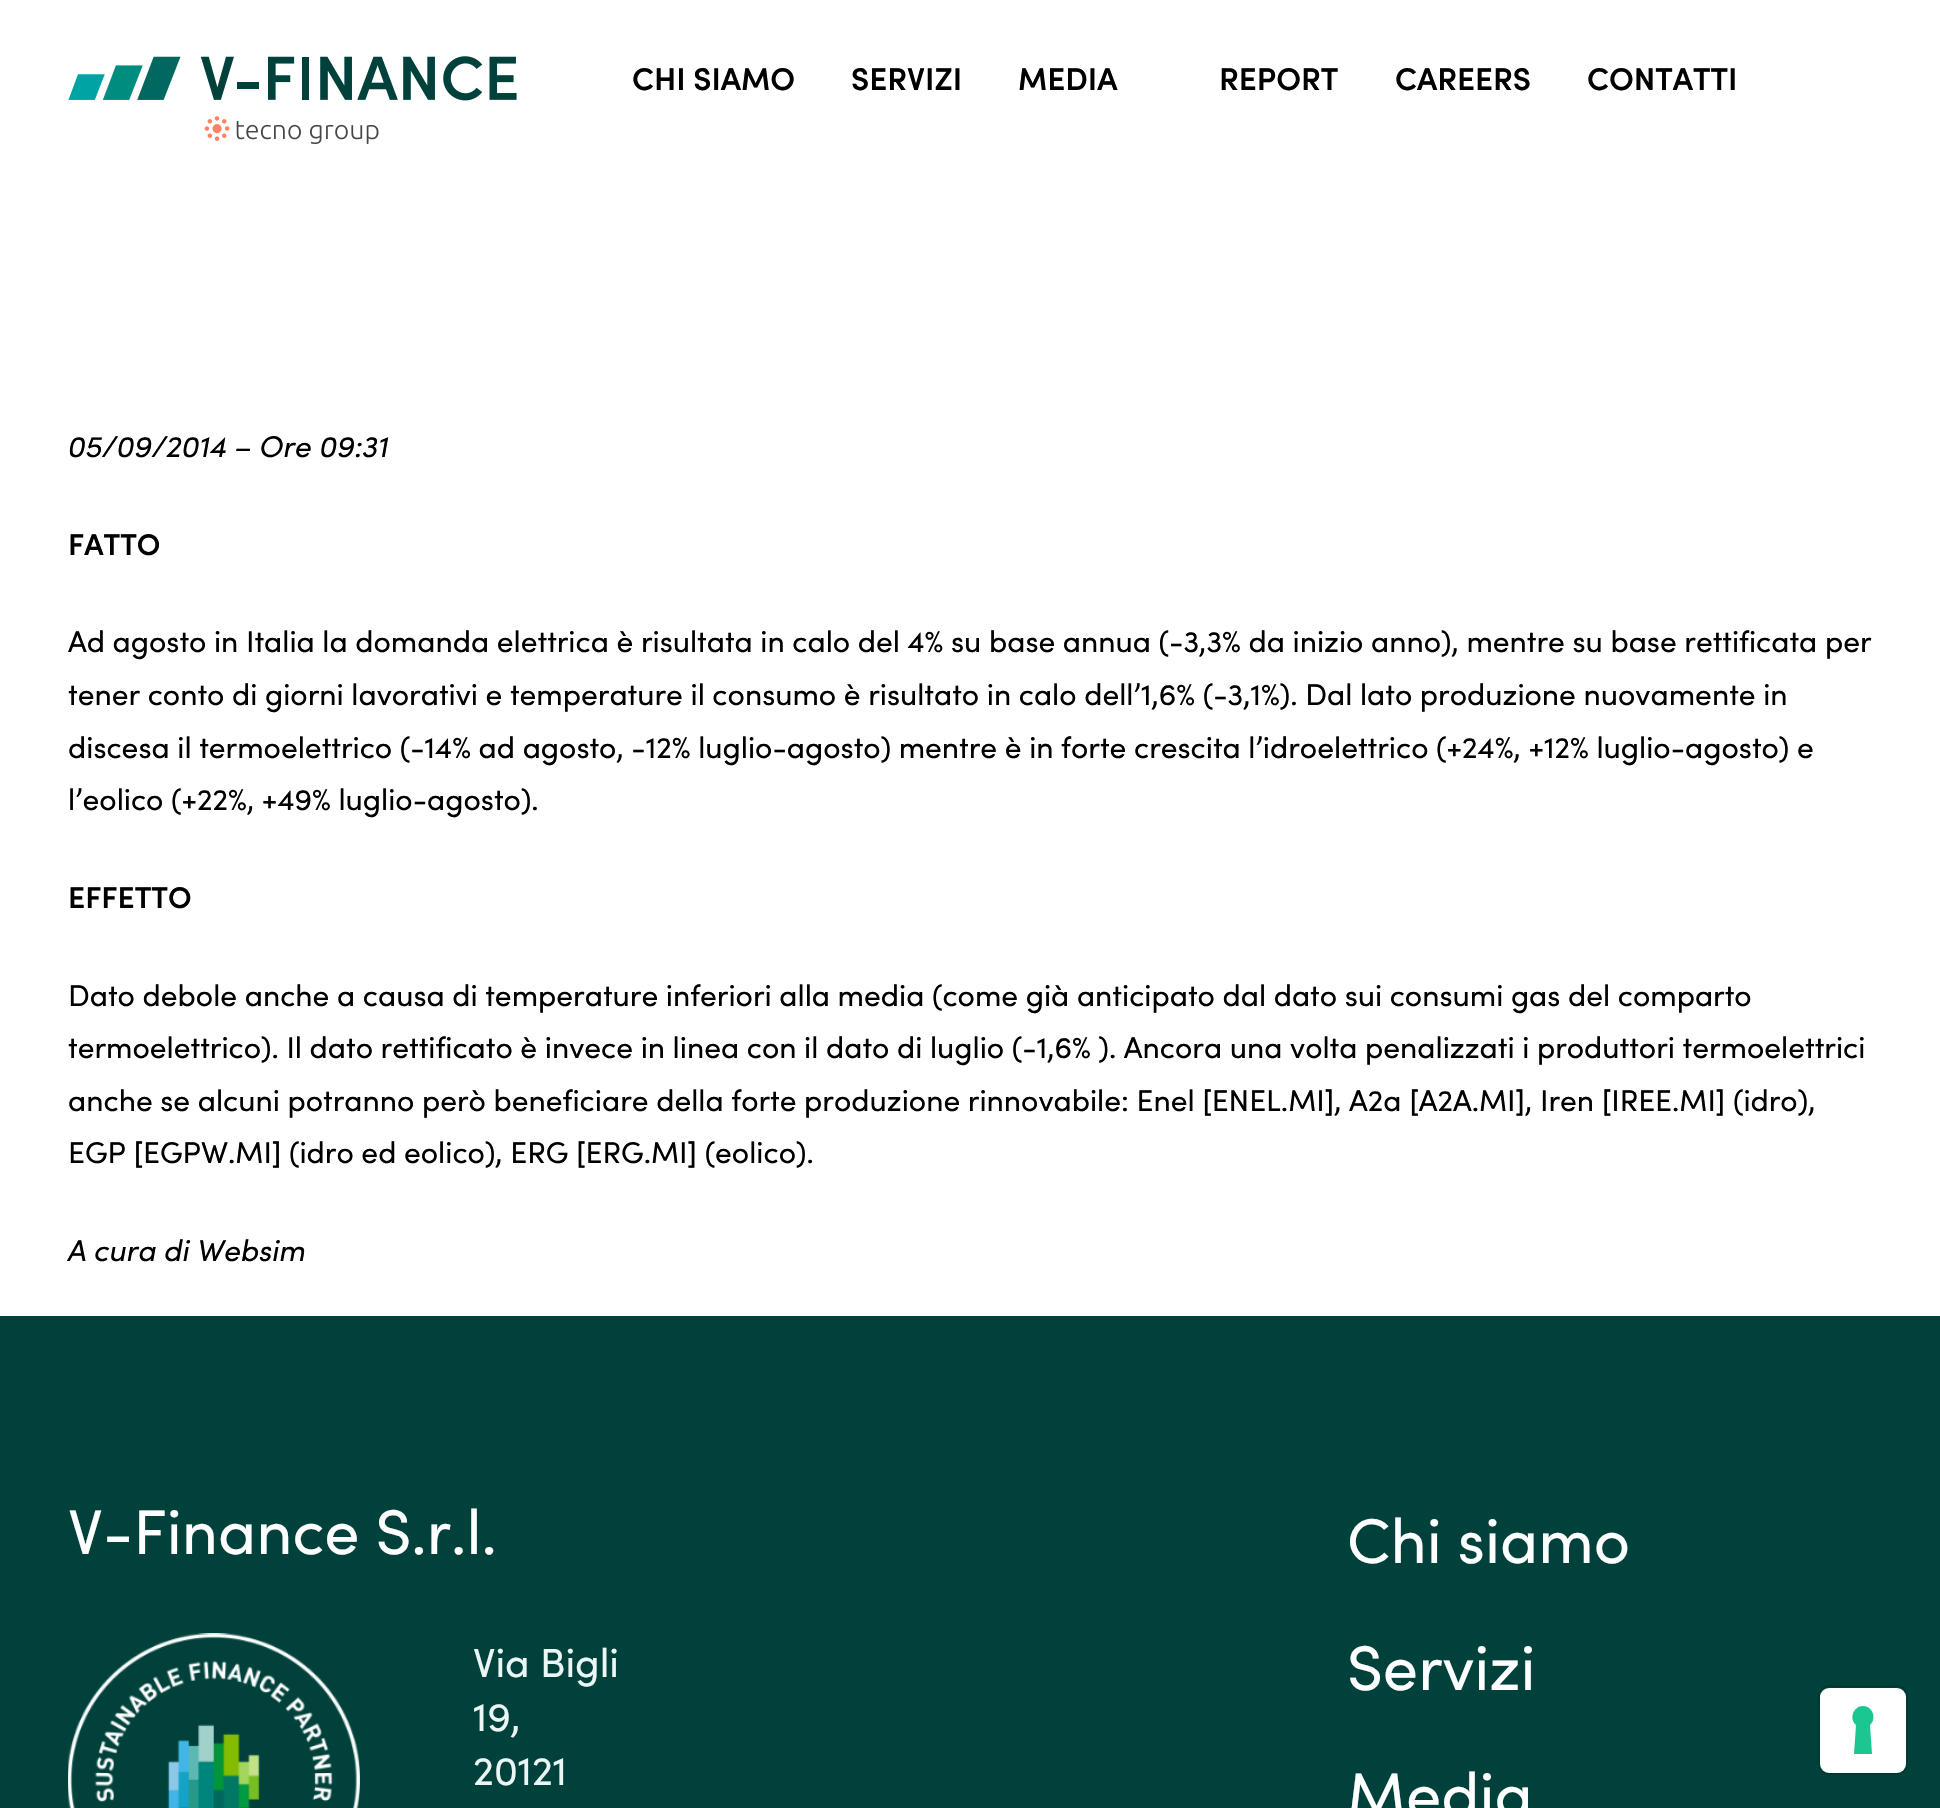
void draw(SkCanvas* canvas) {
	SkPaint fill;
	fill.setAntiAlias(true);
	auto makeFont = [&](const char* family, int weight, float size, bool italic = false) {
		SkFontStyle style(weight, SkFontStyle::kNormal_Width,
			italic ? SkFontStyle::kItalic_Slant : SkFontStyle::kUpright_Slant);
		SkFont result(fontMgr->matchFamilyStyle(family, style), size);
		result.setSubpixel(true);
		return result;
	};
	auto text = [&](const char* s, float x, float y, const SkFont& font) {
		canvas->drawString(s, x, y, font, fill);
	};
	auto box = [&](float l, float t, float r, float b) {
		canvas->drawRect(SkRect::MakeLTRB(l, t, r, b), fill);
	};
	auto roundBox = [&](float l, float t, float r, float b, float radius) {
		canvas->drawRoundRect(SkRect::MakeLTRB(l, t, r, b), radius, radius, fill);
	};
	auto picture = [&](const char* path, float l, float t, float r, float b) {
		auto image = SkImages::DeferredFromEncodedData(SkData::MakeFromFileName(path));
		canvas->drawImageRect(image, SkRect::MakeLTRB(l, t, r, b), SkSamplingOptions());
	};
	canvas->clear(0xFFFFFFFF);
	picture("image0.png", 68, 56, 517, 144);
	fill.setColor(0xFF00423B);
	box(0, 1316, 1940, 1808);
	picture("image1.png", 68, 1633, 360, 1808);
	fill.setStyle(SkPaint::kStroke_Style);
	fill.setStrokeWidth(2);
	fill.setColor(0xFF003832);
	canvas->drawRoundRect(SkRect::MakeLTRB(1819, 1686, 1907, 1774), 10, 10, fill);
	fill.setStyle(SkPaint::kFill_Style);
	fill.setColor(0xFFFFFFFF);
	roundBox(1820, 1688, 1906, 1773, 9);
	fill.setColor(0xFF1CC691);
	canvas->drawPath(SkPathBuilder(SkPathFillType::kEvenOdd).moveTo(1863, 1706).cubicTo(1873, 1706, 1877, 1719, 1870, 1725).lineTo(1872, 1754).lineTo(1854, 1754).lineTo(1856, 1725).cubicTo(1849, 1719, 1853, 1706, 1863, 1706).close().detach(), fill);
	auto font1 = makeFont("Sofia", 600, 31.5f);
	fill.setColor(0xFF000000);
	text("CHI SIAMO", 632, 90, font1);
	text("SERVIZI", 851, 90, font1);
	text("MEDIA", 1018, 90, font1);
	text("REPORT", 1219, 90, font1);
	text("CAREERS", 1395, 90, font1);
	text("CONTATTI", 1587, 90, font1);
	auto font2 = makeFont("Sofia", 400, 30, true);
	text("05/09/2014 – Ore 09:31", 68, 457, font2);
	auto font3 = makeFont("Sofia", 600, 30);
	text("FATTO", 68, 555, font3);
	auto font4 = makeFont("Sofia", 400, 30);
	text("Ad agosto in Italia la domanda elettrica è risultata in calo del 4% su base annua (-3,3% da inizio anno), mentre su base rettificata per", 68, 652, font4);
	text("tener conto di giorni lavorativi e temperature il consumo è risultato in calo dell’1,6% (-3,1%). Dal lato produzione nuovamente in", 68, 705, font4);
	text("discesa il termoelettrico (-14% ad agosto, -12% luglio-agosto) mentre è in forte crescita l’idroelettrico (+24%, +12% luglio-agosto) e", 68, 758, font4);
	text("l’eolico (+22%, +49% luglio-agosto).", 68, 810, font4);
	text("EFFETTO", 68, 908, font3);
	text("Dato debole anche a causa di temperature inferiori alla media (come già anticipato dal dato sui consumi gas del comparto", 68, 1006, font4);
	text("termoelettrico). Il dato rettificato è invece in linea con il dato di luglio (-1,6% ). Ancora una volta penalizzati i produttori termoelettrici", 68, 1058, font4);
	text("anche se alcuni potranno però beneficiare della forte produzione rinnovabile: Enel [ENEL.MI], A2a [A2A.MI], Iren [IREE.MI] (idro),", 68, 1111, font4);
	text("EGP [EGPW.MI] (idro ed eolico), ERG [ERG.MI] (eolico).", 68, 1163, font4);
	text("A cura di Websim", 68, 1261, font2);
	auto font5 = makeFont("Sofia", 400, 63);
	fill.setColor(0xFFFFFFFF);
	text("V-Finance S.r.l.", 68, 1554, font5);
	auto font6 = makeFont("Sofia", 400, 40.5f);
	fill.setColor(0xFFEBF6F5);
	text("Via Bigli", 473, 1677, font6);
	text("19,", 473, 1731, font6);
	text("20121", 473, 1785, font6);
	fill.setColor(0xFFFFFFFF);
	text("Chi siamo", 1347, 1563, font5);
	text("Servizi", 1347, 1690, font5);
	text("Media", 1347, 1817, font5);
}
